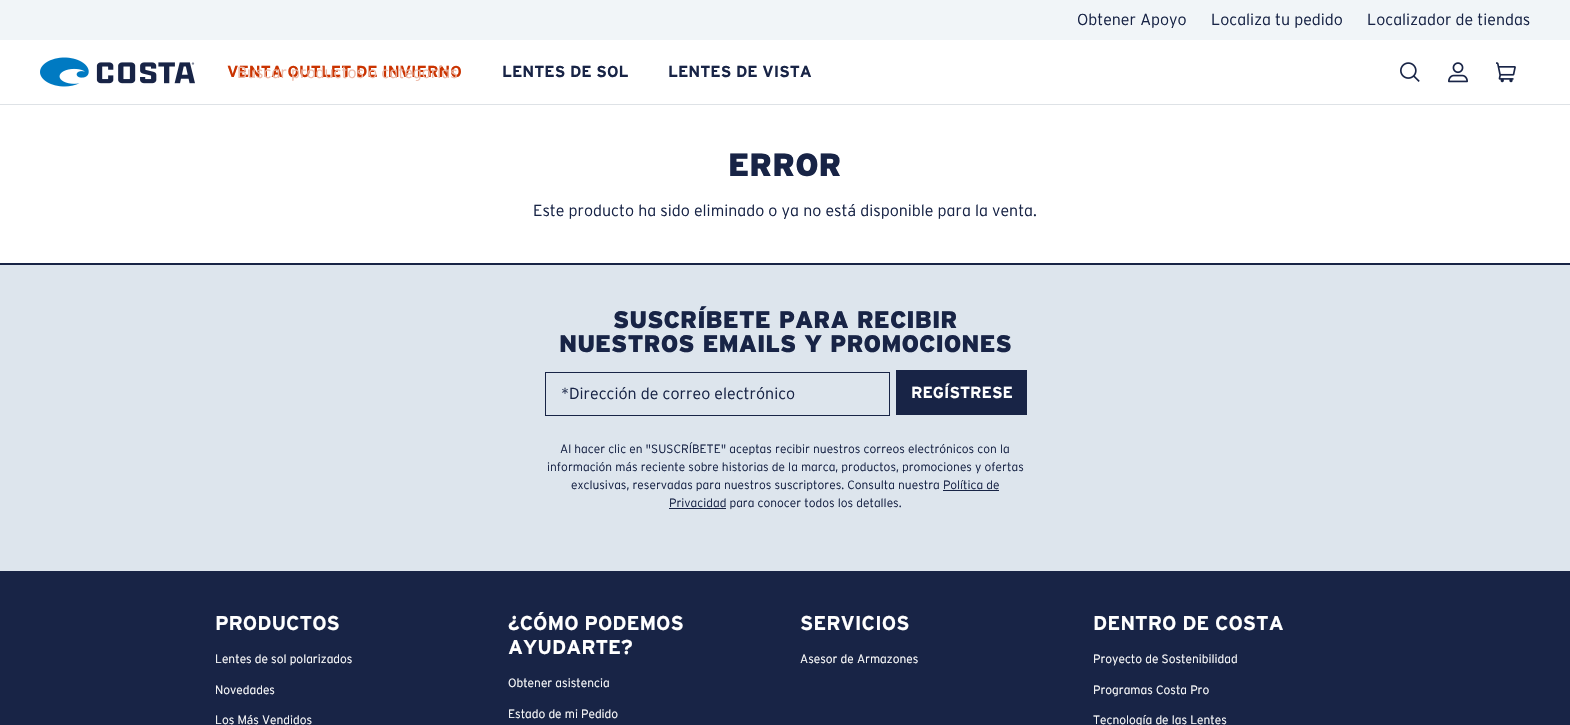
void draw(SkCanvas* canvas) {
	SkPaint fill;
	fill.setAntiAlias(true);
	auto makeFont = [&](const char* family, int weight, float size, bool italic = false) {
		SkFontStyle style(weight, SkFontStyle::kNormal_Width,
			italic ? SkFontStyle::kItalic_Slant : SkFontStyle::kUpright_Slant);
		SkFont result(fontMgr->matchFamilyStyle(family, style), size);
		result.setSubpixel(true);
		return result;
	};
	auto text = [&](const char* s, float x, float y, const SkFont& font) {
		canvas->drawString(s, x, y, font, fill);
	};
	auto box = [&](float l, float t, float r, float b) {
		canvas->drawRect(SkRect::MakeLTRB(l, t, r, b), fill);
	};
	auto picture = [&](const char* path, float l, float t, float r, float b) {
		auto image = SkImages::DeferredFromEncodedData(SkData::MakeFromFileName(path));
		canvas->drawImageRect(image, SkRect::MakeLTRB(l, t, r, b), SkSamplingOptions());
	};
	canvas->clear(0xFFFFFFFF);
	fill.setColor(0xFFF1F5F8);
	box(0, 0, 1570, 40);
	fill.setColor(0xFFDEE2E6);
	box(0, 104, 1570, 105);
	picture("image0.png", 40, 57, 195, 87);
	picture("image1.png", 1400, 62, 1420, 82);
	picture("image2.png", 1448, 62, 1468, 83);
	picture("image3.png", 1496, 62, 1516, 83);
	fill.setColor(0xFF182446);
	box(0, 263, 1570, 265);
	fill.setColor(0xFFDDE5ED);
	box(0, 265, 1570, 571);
	fill.setStyle(SkPaint::kStroke_Style);
	fill.setStrokeWidth(1);
	fill.setColor(0xFF182446);
	canvas->drawRect(SkRect::MakeLTRB(545.5f, 372.5f, 889.5f, 415.5f), fill);
	fill.setStyle(SkPaint::kFill_Style);
	box(896, 370, 1027, 415);
	box(943, 490, 999, 491);
	box(669, 508, 726, 509);
	box(0, 571, 1570, 725);
	auto font1 = makeFont("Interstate", 300, 16);
	text("Obtener Apoyo", 1077, 25, font1);
	text("Localiza tu pedido", 1211, 25, font1);
	text("Localizador de tiendas", 1367, 25, font1);
	auto font2 = makeFont("Interstate", 700, 16);
	fill.setColor(0xFFCA3300);
	text("VENTA OUTLET DE INVIERNO", 227, 77, font2);
	fill.setColor(0xFF182446);
	text("LENTES DE SOL", 502, 77, font2);
	text("LENTES DE VISTA", 668, 77, font2);
	fill.setColor(0xFFEDB8A6);
	text("Buscar productos o categorías", 237, 78, font1);
	auto font3 = makeFont("Interstate", 900, 32);
	fill.setColor(0xFF182446);
	text("ERROR", 728, 176, font3);
	text("Este producto ha sido eliminado o ya no está disponible para la venta.", 533, 216, font1);
	auto font4 = makeFont("Interstate", 900, 24);
	text("SUSCRÍBETE PARA RECIBIR", 613, 328, font4);
	text("NUESTROS EMAILS Y PROMOCIONES", 559, 352, font4);
	text("*Dirección de correo electrónico", 561, 399, font1);
	fill.setColor(0xFFFFFFFF);
	text("REGÍSTRESE", 911, 398, font2);
	auto font5 = makeFont("Interstate", 300, 12);
	fill.setColor(0xFF182446);
	text("Al hacer clic en \"SUSCRÍBETE\" aceptas recibir nuestros correos electrónicos con la", 560, 453, font5);
	text("información más reciente sobre historias de la marca, productos, promociones y ofertas", 547, 471, font5);
	text("exclusivas, reservadas para nuestros suscriptores. Consulta nuestra Política de", 571, 489, font5);
	text("Privacidad para conocer todos los detalles.", 669, 507, font5);
	auto font6 = makeFont("Interstate", 700, 20);
	fill.setColor(0xFFFFFFFF);
	text("PRODUCTOS", 215, 630, font6);
	text("Lentes de sol polarizados", 215, 663, font5);
	text("Novedades", 215, 694, font5);
	text("Los Más Vendidos", 215, 724, font5);
	text("¿CÓMO PODEMOS", 508, 630, font6);
	text("AYUDARTE?", 508, 654, font6);
	text("Obtener asistencia", 508, 687, font5);
	text("Estado de mi Pedido", 508, 718, font5);
	text("SERVICIOS", 800, 630, font6);
	text("Asesor de Armazones", 800, 663, font5);
	text("DENTRO DE COSTA", 1093, 630, font6);
	text("Proyecto de Sostenibilidad", 1093, 663, font5);
	text("Programas Costa Pro", 1093, 694, font5);
	text("Tecnología de las Lentes", 1093, 724, font5);
}
